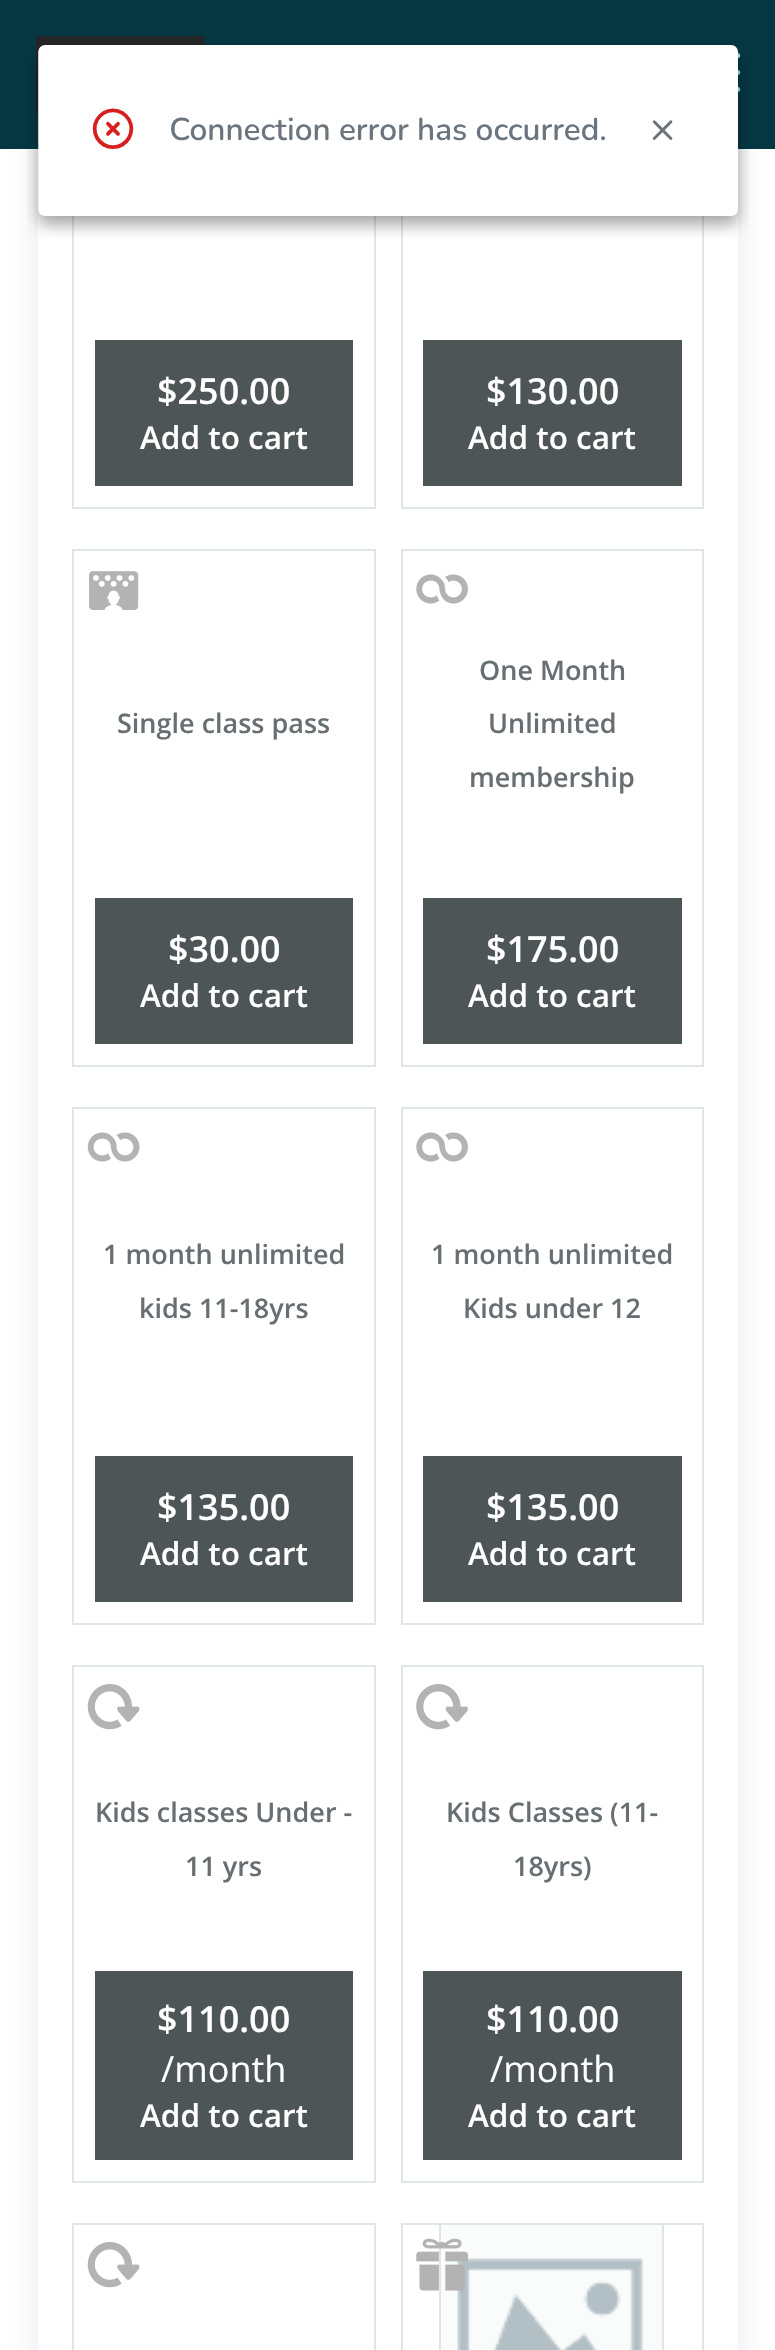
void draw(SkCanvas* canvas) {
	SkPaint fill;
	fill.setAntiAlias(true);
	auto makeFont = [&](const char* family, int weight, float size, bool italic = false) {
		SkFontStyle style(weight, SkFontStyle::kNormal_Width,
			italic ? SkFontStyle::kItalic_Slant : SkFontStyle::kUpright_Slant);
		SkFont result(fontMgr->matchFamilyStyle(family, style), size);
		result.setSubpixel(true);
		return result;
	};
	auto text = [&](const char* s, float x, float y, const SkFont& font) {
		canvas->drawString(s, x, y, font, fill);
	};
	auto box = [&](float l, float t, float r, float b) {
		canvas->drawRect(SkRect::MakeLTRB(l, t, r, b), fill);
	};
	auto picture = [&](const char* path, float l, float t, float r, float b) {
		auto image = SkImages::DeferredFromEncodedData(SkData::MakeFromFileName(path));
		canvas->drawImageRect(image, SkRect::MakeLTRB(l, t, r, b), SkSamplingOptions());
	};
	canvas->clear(0xFFFFFFFF);
	canvas->save();
	canvas->clipPath(SkPathBuilder(SkPathFillType::kEvenOdd).moveTo(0, 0).lineTo(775, 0).lineTo(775, 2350).lineTo(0, 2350).close().moveTo(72, -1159).lineTo(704, -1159).cubicTo(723, -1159, 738, -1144, 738, -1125).lineTo(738, 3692).cubicTo(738, 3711, 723, 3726, 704, 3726).lineTo(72, 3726).cubicTo(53, 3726, 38, 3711, 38, 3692).lineTo(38, -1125).cubicTo(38, -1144, 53, -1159, 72, -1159).close().detach(), true);
	fill.setColor(0x1723083D);
	fill.setMaskFilter(SkMaskFilter::MakeBlur(kNormal_SkBlurStyle, 17));
	canvas->drawRoundRect(SkRect::MakeLTRB(38, -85, 738, 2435), 34, 34, fill);
	fill.setMaskFilter(nullptr);
	canvas->restore();
	fill.setStyle(SkPaint::kStroke_Style);
	fill.setStrokeWidth(2);
	fill.setColor(0xFFE0E6E8);
	canvas->drawRect(SkRect::MakeLTRB(73, -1, 375, 508), fill);
	canvas->drawRect(SkRect::MakeLTRB(402, -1, 703, 508), fill);
	fill.setStyle(SkPaint::kFill_Style);
	fill.setColor(0xFF053742);
	box(0, 0, 775, 149);
	picture("image1.png", 36, 36, 205, 114);
	picture("image2.png", 738, 53, 741, 92);
	picture("image0.png", 26, 42, 750, 237);
	fill.setColor(0xFF4D5557);
	box(95, 340, 353, 486);
	box(423, 340, 682, 486);
	fill.setStyle(SkPaint::kStroke_Style);
	fill.setColor(0xFFE0E6E8);
	canvas->drawRect(SkRect::MakeLTRB(73, 550, 375, 1066), fill);
	picture("image3.png", 89, 571, 139, 610);
	fill.setStyle(SkPaint::kFill_Style);
	fill.setColor(0xFF4D5557);
	box(95, 898, 353, 1044);
	fill.setStyle(SkPaint::kStroke_Style);
	fill.setColor(0xFFE0E6E8);
	canvas->drawRect(SkRect::MakeLTRB(402, 550, 703, 1066), fill);
	picture("image4.png", 416, 574, 468, 604);
	fill.setStyle(SkPaint::kFill_Style);
	fill.setColor(0xFF4D5557);
	box(423, 898, 682, 1044);
	fill.setStyle(SkPaint::kStroke_Style);
	fill.setColor(0xFFE0E6E8);
	canvas->drawRect(SkRect::MakeLTRB(73, 1108, 375, 1624), fill);
	picture("image5.png", 87, 1132, 140, 1162);
	fill.setStyle(SkPaint::kFill_Style);
	fill.setColor(0xFF4D5557);
	box(95, 1456, 353, 1602);
	fill.setStyle(SkPaint::kStroke_Style);
	fill.setColor(0xFFE0E6E8);
	canvas->drawRect(SkRect::MakeLTRB(402, 1108, 703, 1624), fill);
	picture("image4.png", 416, 1132, 468, 1162);
	fill.setStyle(SkPaint::kFill_Style);
	fill.setColor(0xFF4D5557);
	box(423, 1456, 682, 1602);
	fill.setStyle(SkPaint::kStroke_Style);
	fill.setColor(0xFFE0E6E8);
	canvas->drawRect(SkRect::MakeLTRB(73, 1666, 375, 2182), fill);
	picture("image6.png", 87, 1684, 140, 1730);
	fill.setStyle(SkPaint::kFill_Style);
	fill.setColor(0xFF4D5557);
	box(95, 1971, 353, 2160);
	fill.setStyle(SkPaint::kStroke_Style);
	fill.setColor(0xFFE0E6E8);
	canvas->drawRect(SkRect::MakeLTRB(402, 1666, 703, 2182), fill);
	picture("image7.png", 416, 1684, 468, 1730);
	fill.setStyle(SkPaint::kFill_Style);
	fill.setColor(0xFF4D5557);
	box(423, 1971, 682, 2160);
	fill.setStyle(SkPaint::kStroke_Style);
	fill.setColor(0xFFE0E6E8);
	canvas->drawRect(SkRect::MakeLTRB(73, 2224, 375, 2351), fill);
	picture("image6.png", 87, 2242, 140, 2288);
	canvas->drawRect(SkRect::MakeLTRB(402, 2224, 703, 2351), fill);
	fill.setStyle(SkPaint::kFill_Style);
	fill.setColor(0xFFFAFBFB);
	box(441, 2225, 662, 2350);
	picture("image8.png", 457, 2258, 643, 2350);
	fill.setStyle(SkPaint::kStroke_Style);
	fill.setColor(0xFFE0E6E8);
	canvas->drawRect(SkRect::MakeLTRB(440, 2224, 663, 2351), fill);
	picture("image9.png", 416, 2238, 468, 2291);
	auto font1 = makeFont("Open Sans", 600, 36);
	fill.setStyle(SkPaint::kFill_Style);
	fill.setColor(0xFFFFFFFF);
	text("$250.00", 157, 404, font1);
	auto font2 = makeFont("Open Sans", 600, 31.5f);
	text("Add to cart", 140, 449, font2);
	text("$130.00", 486, 404, font1);
	text("Add to cart", 468, 449, font2);
	auto font3 = makeFont("Open Sans", 600, 27);
	fill.setColor(0xFF686F73);
	text("Single class pass", 117, 733, font3);
	fill.setColor(0xFFFFFFFF);
	text("$30.00", 168, 962, font1);
	text("Add to cart", 140, 1007, font2);
	fill.setColor(0xFF686F73);
	text("One Month", 479, 680, font3);
	text("Unlimited", 488, 733, font3);
	text("membership", 469, 787, font3);
	fill.setColor(0xFFFFFFFF);
	text("$175.00", 486, 962, font1);
	text("Add to cart", 468, 1007, font2);
	fill.setColor(0xFF686F73);
	text("1 month unlimited", 103, 1264, font3);
	text("kids 11-18yrs", 139, 1318, font3);
	fill.setColor(0xFFFFFFFF);
	text("$135.00", 157, 1520, font1);
	text("Add to cart", 140, 1565, font2);
	fill.setColor(0xFF686F73);
	text("1 month unlimited", 431, 1264, font3);
	text("Kids under 12", 463, 1318, font3);
	fill.setColor(0xFFFFFFFF);
	text("$135.00", 486, 1520, font1);
	text("Add to cart", 468, 1565, font2);
	fill.setColor(0xFF686F73);
	text("Kids classes Under -", 95, 1822, font3);
	text("11 yrs", 185, 1876, font3);
	fill.setColor(0xFFFFFFFF);
	text("$110.00", 157, 2032, font1);
	auto font4 = makeFont("Open Sans", 400, 36);
	text("/month", 161, 2082, font4);
	text("Add to cart", 140, 2127, font2);
	fill.setColor(0xFF686F73);
	text("Kids Classes (11-", 446, 1822, font3);
	text("18yrs)", 513, 1876, font3);
	fill.setColor(0xFFFFFFFF);
	text("$110.00", 486, 2032, font1);
	text("/month", 490, 2082, font4);
	text("Add to cart", 468, 2127, font2);
}
